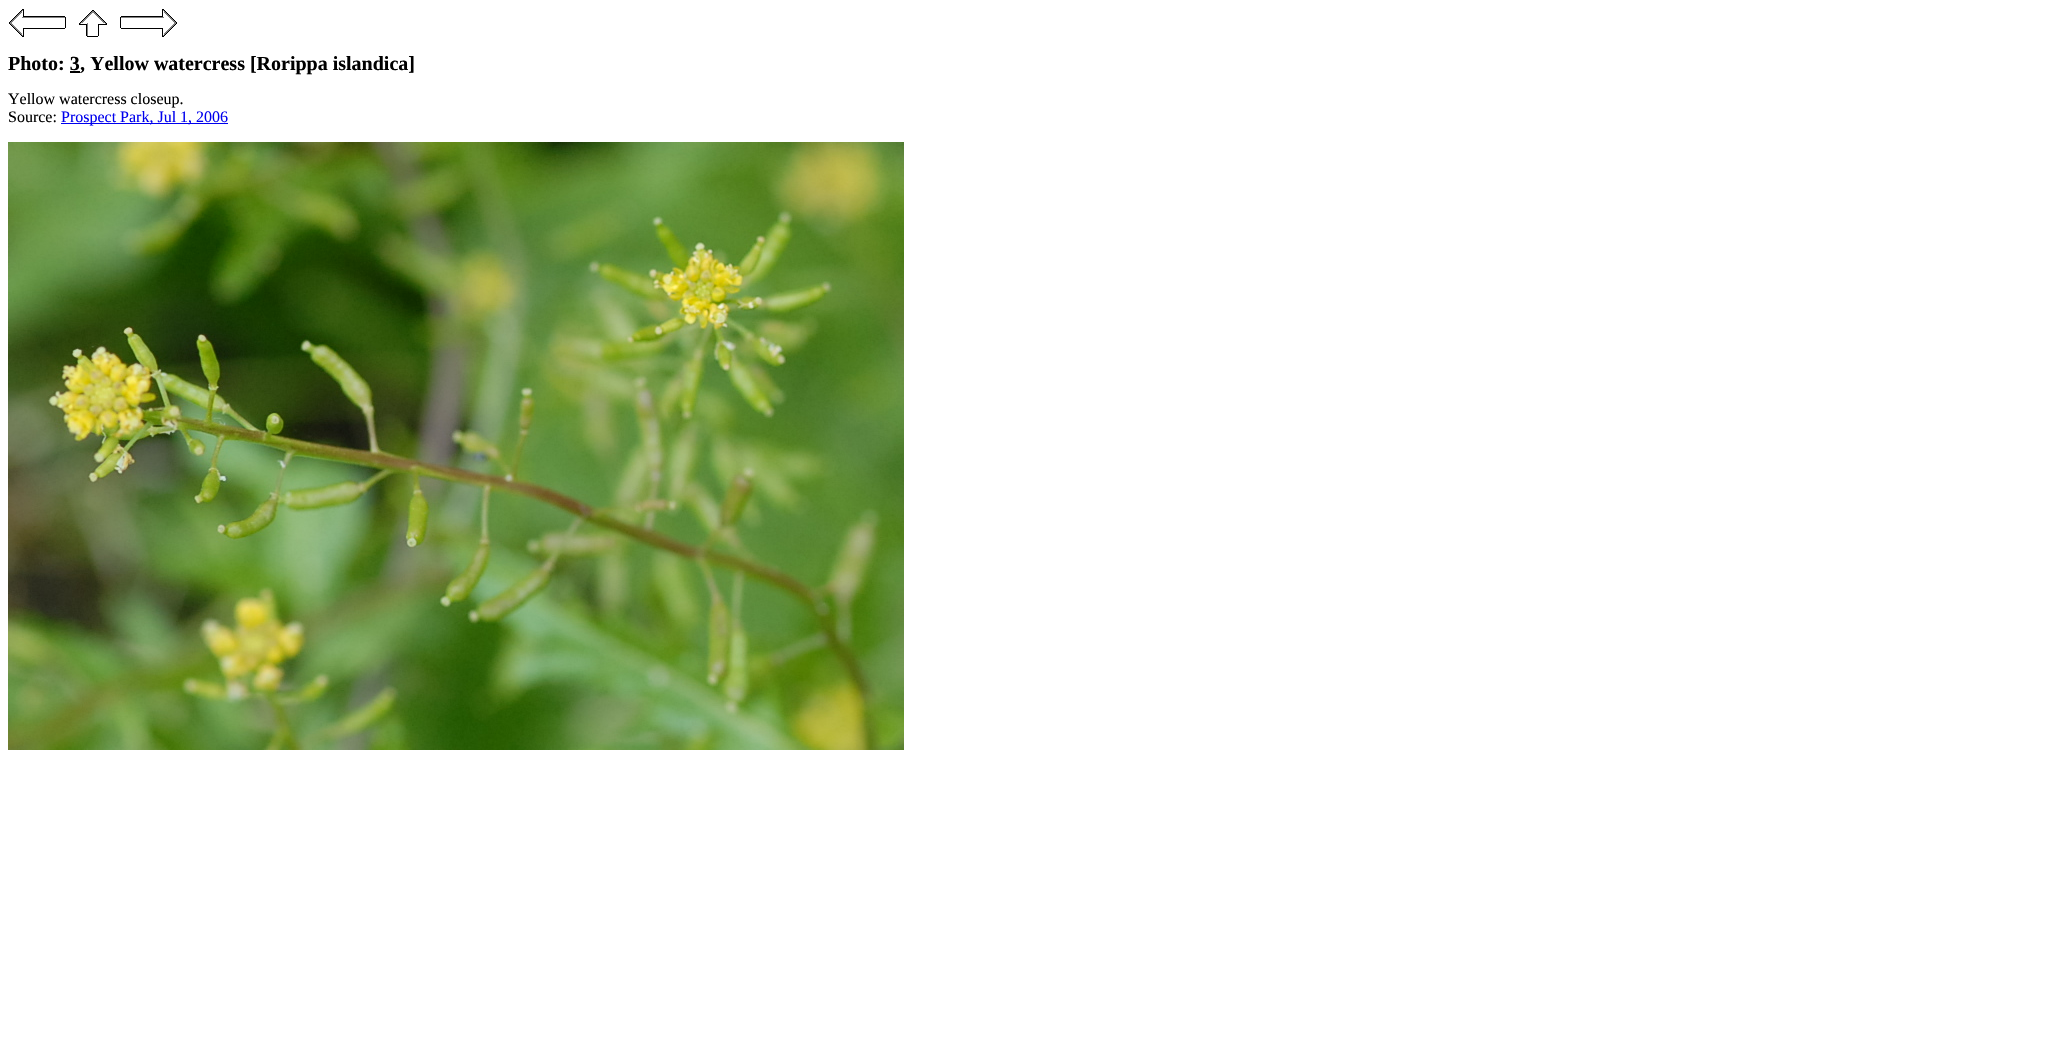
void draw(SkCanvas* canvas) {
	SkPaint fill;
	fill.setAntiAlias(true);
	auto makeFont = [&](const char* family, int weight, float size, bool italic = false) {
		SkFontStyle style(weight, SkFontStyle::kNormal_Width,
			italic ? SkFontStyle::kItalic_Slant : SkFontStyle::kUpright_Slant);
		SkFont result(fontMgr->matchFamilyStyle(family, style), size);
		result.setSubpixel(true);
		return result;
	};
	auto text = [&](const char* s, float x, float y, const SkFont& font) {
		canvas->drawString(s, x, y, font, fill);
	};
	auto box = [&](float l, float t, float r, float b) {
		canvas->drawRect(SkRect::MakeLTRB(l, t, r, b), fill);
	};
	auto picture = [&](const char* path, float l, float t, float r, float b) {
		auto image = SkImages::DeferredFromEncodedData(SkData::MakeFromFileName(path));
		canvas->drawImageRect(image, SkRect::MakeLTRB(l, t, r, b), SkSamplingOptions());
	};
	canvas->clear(0xFFFFFFFF);
	picture("image0.png", 9, 9, 66, 37);
	picture("image1.png", 79, 10, 107, 37);
	picture("image2.png", 120, 9, 177, 37);
	fill.setColor(0xFF000000);
	box(70, 71, 80, 73);
	fill.setColor(0xFF0000EE);
	box(61, 123, 228, 124);
	picture("image3.png", 8, 142, 904, 750);
	auto font1 = makeFont("Liberation Serif", 700, 20);
	fill.setColor(0xFF000000);
	text("Photo: 3", 8, 70, font1);
	text(", Yellow watercress [Rorippa islandica]", 80, 70, font1);
	auto font2 = makeFont("Liberation Serif", 400, 16);
	text("Yellow watercress closeup.", 8, 104, font2);
	text("Source:", 8, 122, font2);
	fill.setColor(0xFF0000EE);
	text("Prospect Park, Jul 1, 2006", 61, 122, font2);
}
